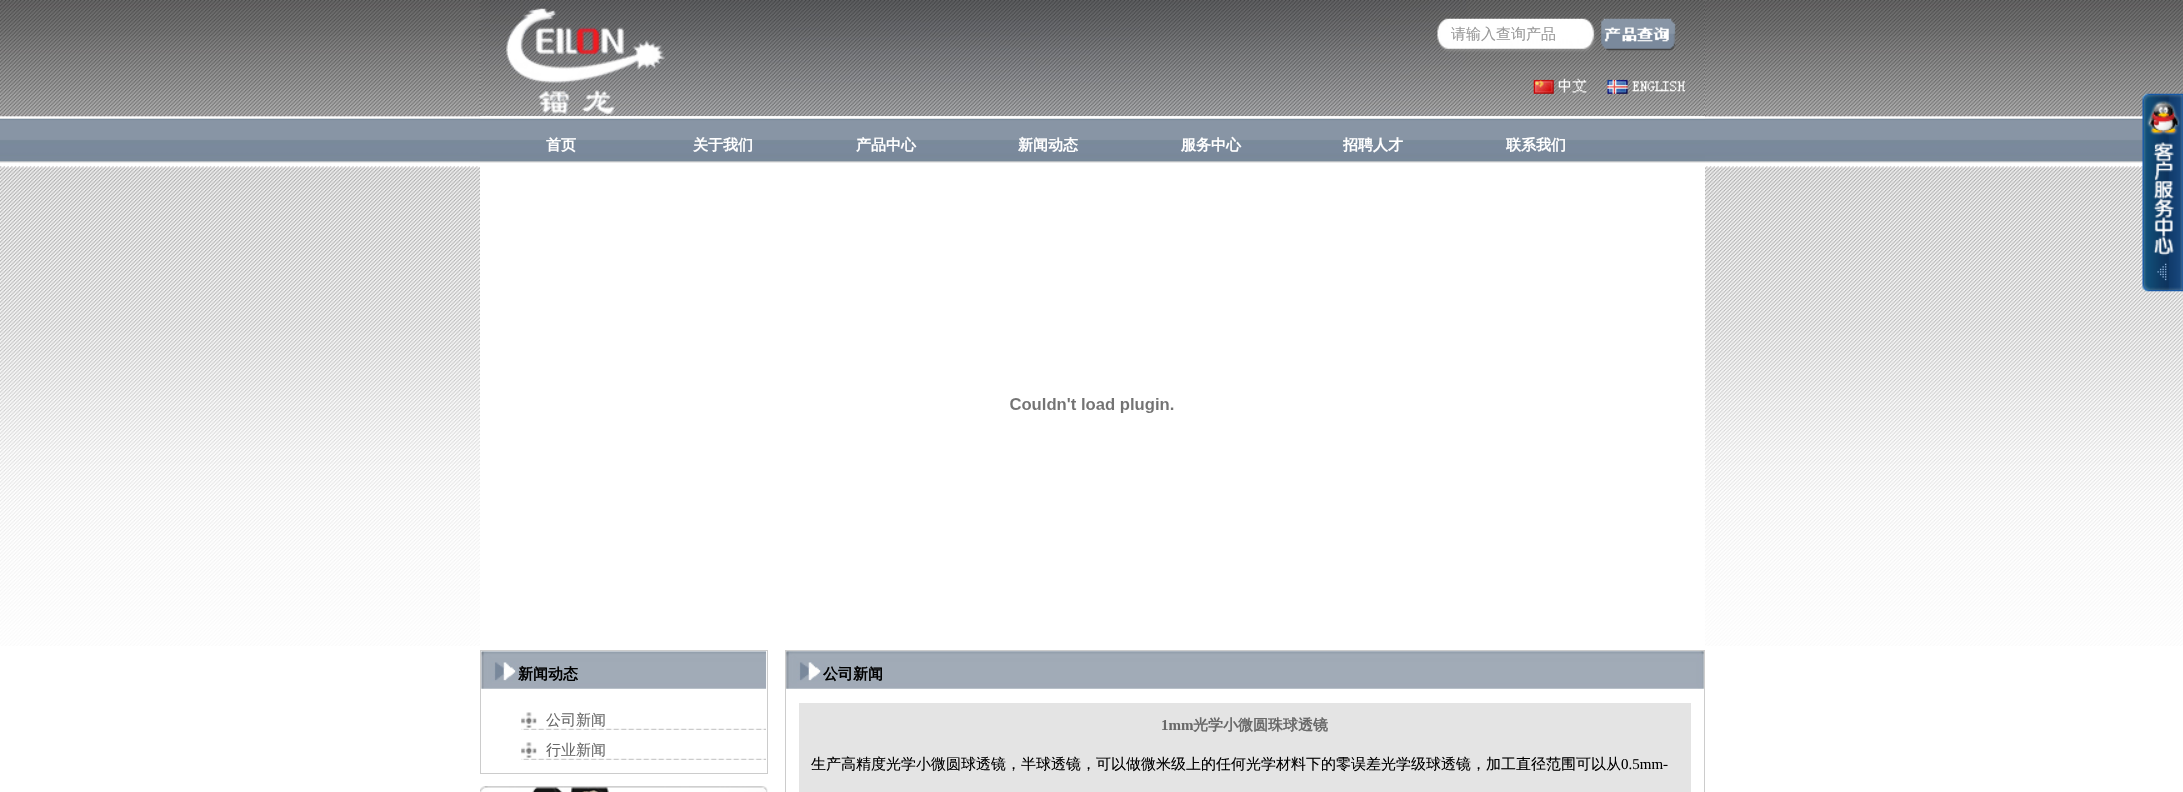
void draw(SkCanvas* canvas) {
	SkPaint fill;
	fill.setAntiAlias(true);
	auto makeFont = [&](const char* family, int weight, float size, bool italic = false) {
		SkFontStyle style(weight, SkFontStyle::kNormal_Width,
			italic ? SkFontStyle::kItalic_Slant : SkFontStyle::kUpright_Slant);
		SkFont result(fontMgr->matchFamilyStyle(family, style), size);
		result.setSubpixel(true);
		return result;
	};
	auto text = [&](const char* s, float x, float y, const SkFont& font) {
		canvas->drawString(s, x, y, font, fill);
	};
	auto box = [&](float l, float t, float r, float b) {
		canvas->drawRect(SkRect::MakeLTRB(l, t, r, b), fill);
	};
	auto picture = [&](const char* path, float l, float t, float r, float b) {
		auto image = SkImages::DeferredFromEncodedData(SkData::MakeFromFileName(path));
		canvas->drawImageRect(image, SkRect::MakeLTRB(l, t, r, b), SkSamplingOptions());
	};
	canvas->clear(0xFFFFFFFF);
	picture("image0.png", 0, 0, 2183, 646);
	fill.setColor(0xFFFFFFFF);
	box(480, 116, 1705, 646);
	picture("image1.png", 480, 0, 1705, 117);
	picture("image2.png", 1601, 18, 1676, 52);
	picture("image3.png", 1533, 78, 1587, 94);
	picture("image4.png", 1607, 79, 1685, 94);
	picture("image5.png", 480, 116, 1705, 163);
	picture("image6.png", 1010, 398, 1174, 413);
	fill.setStyle(SkPaint::kStroke_Style);
	fill.setStrokeWidth(1);
	fill.setColor(0xFFCCCCCC);
	canvas->drawRect(SkRect::MakeLTRB(480.5f, 650.5f, 767.5f, 773.5f), fill);
	picture("image7.png", 481, 651, 767, 689);
	picture("image8.png", 521, 728, 766, 730);
	picture("image9.png", 521, 712, 537, 728);
	picture("image8.png", 521, 758, 766, 760);
	picture("image9.png", 521, 742, 537, 758);
	picture("image10.png", 480, 786, 768, 792);
	canvas->drawRect(SkRect::MakeLTRB(785.5f, 650.5f, 1704.5f, 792.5f), fill);
	picture("image11.png", 786, 651, 1704, 689);
	fill.setStyle(SkPaint::kFill_Style);
	fill.setColor(0xFFE4E4E4);
	box(799, 703, 1691, 792);
	picture("image12.png", 2142, 93, 2183, 292);
	auto font1 = makeFont("WenQuanYi Zen Hei", 500, 15);
	fill.setColor(0xFF999999);
	text("请输入查询产品", 1451, 39, font1);
	auto font2 = makeFont("WenQuanYi Zen Hei", 700, 15);
	fill.setColor(0xFFFFFFFF);
	text("首页", 546, 150, font2);
	text("关于我们", 693, 150, font2);
	text("产品中心", 856, 150, font2);
	text("新闻动态", 1018, 150, font2);
	text("服务中心", 1181, 150, font2);
	text("招聘人才", 1343, 150, font2);
	text("联系我们", 1506, 150, font2);
	fill.setColor(0xFF000000);
	text("新闻动态", 518, 679, font2);
	fill.setColor(0xFF696969);
	text("公司新闻", 546, 725, font1);
	text("行业新闻", 546, 755, font1);
	fill.setColor(0xFF000000);
	text("公司新闻", 823, 679, font2);
	auto font3 = makeFont("Liberation Serif", 700, 15);
	fill.setColor(0xFF696969);
	text("1mm", 1161, 730, font3);
	text("光学小微圆珠球透镜", 1193, 730, font2);
	fill.setColor(0xFF000000);
	text("生产高精度光学小微圆球透镜，半球透镜，可以做微米级上的任何光学材料下的零误差光学级球透镜，加工直径范围可以从", 811, 769, font1);
	auto font4 = makeFont("Liberation Serif", 400, 15);
	text("0.5mm-", 1621, 769, font4);
}
